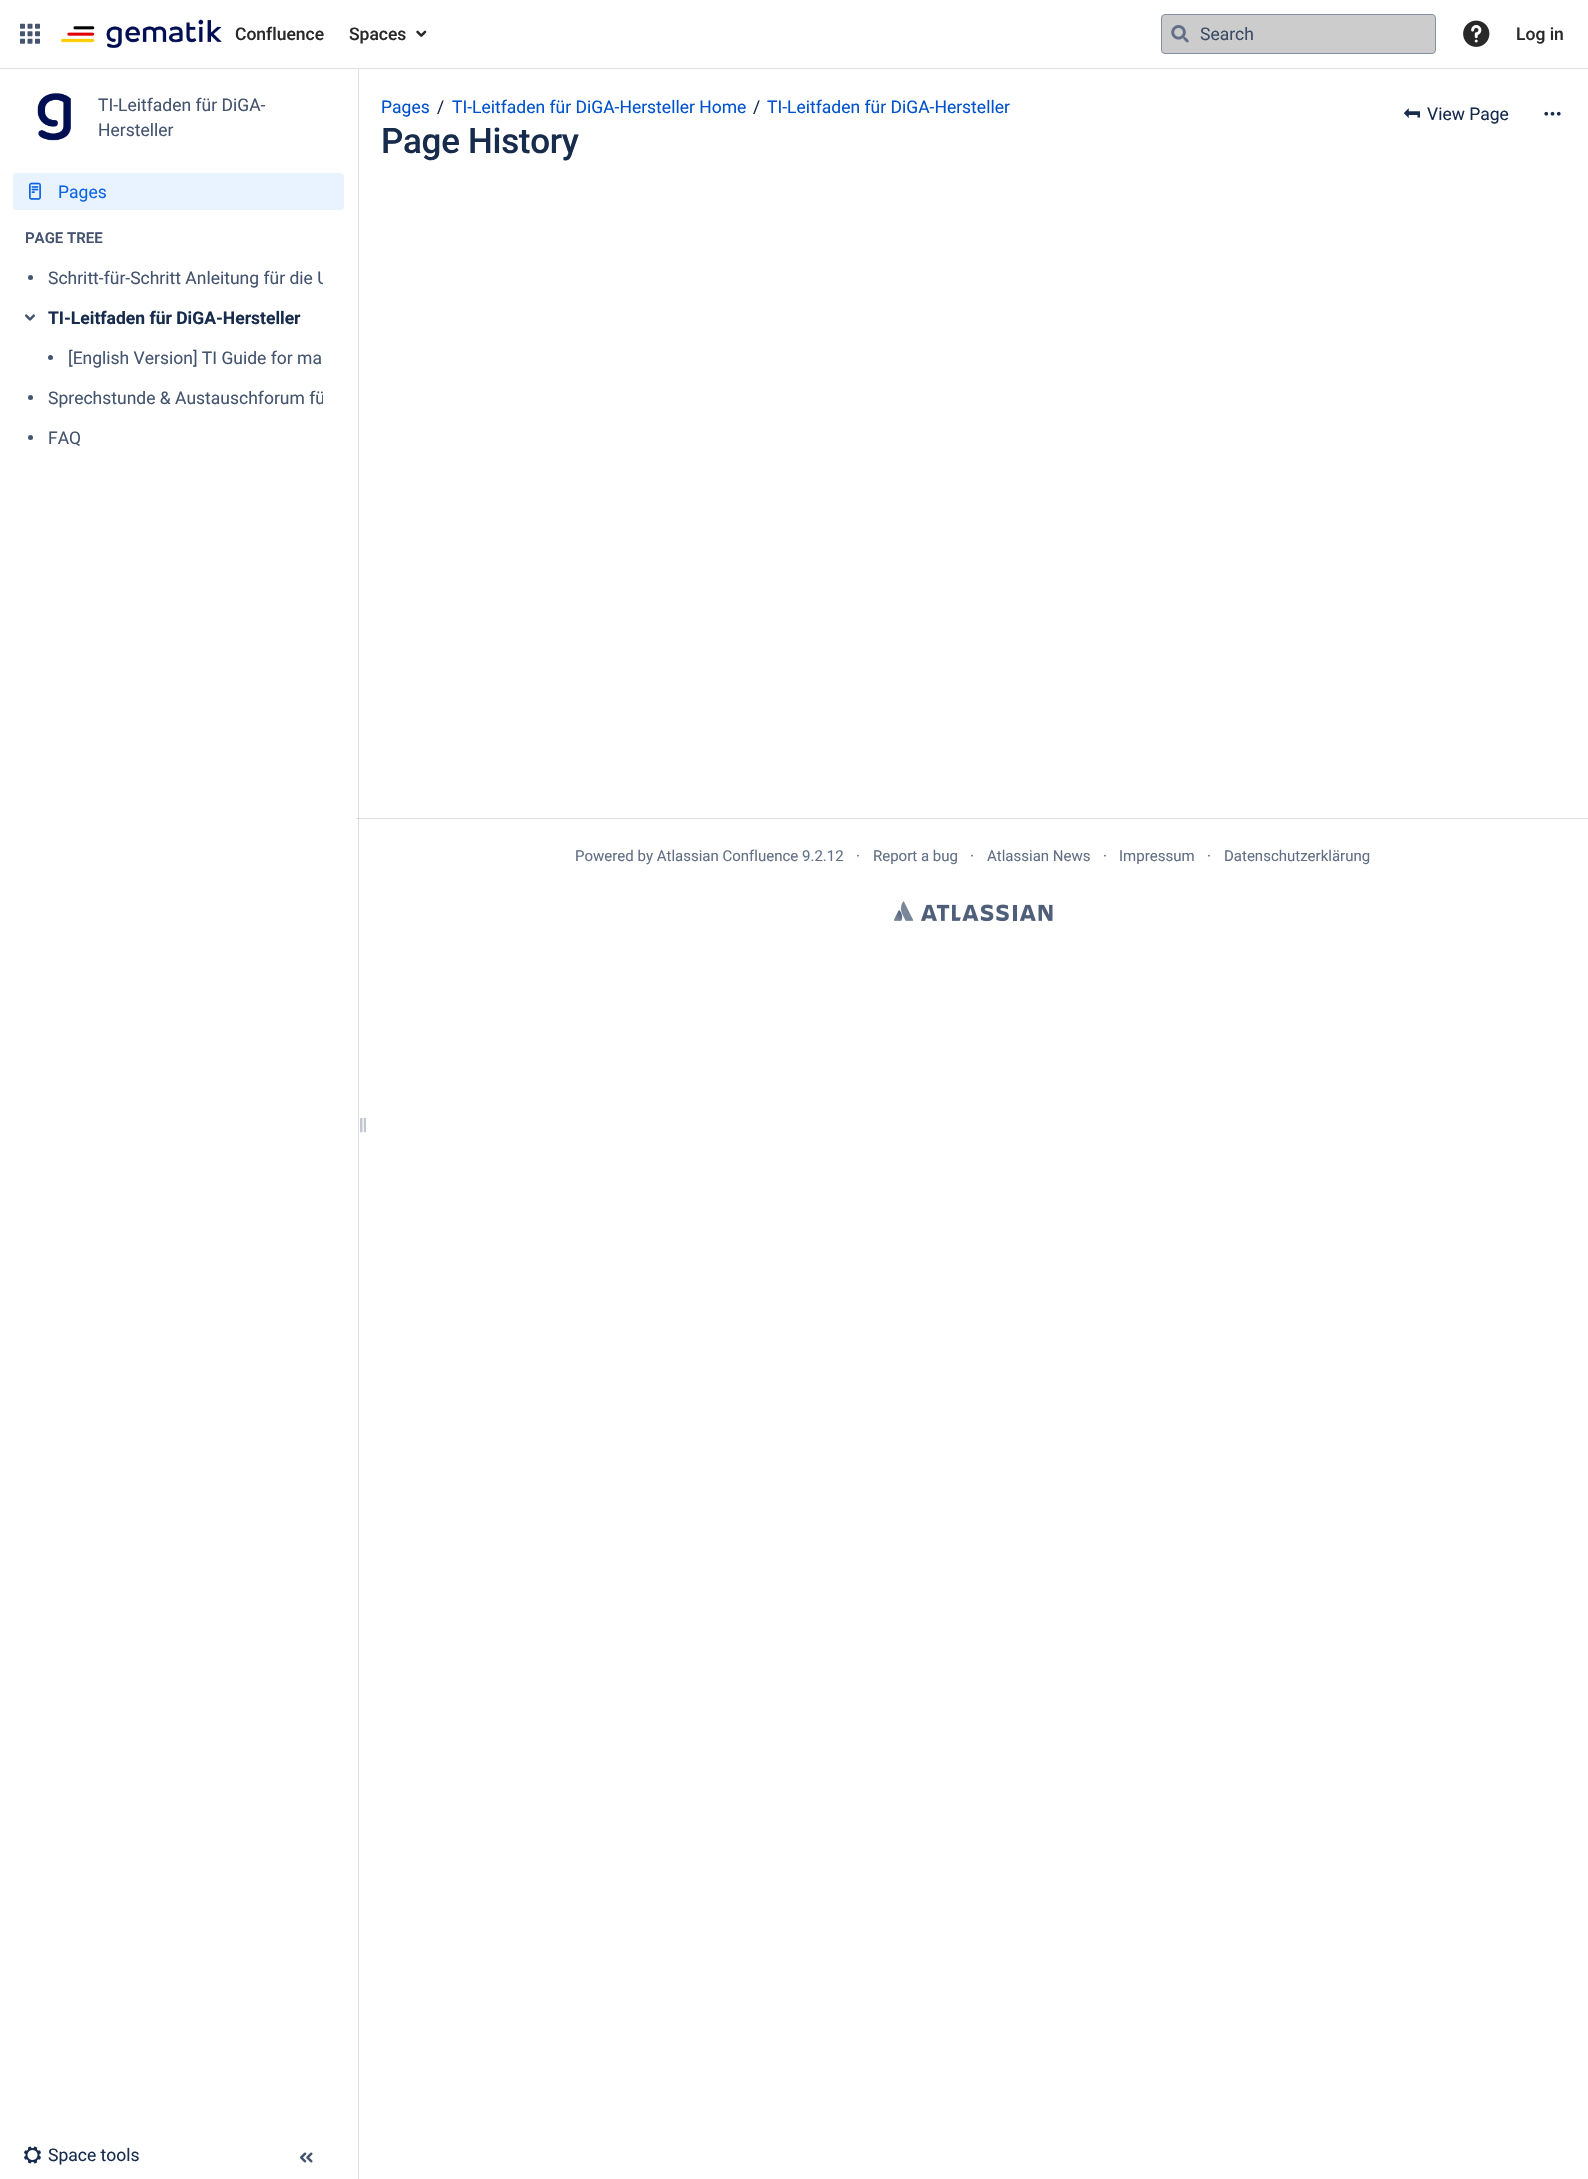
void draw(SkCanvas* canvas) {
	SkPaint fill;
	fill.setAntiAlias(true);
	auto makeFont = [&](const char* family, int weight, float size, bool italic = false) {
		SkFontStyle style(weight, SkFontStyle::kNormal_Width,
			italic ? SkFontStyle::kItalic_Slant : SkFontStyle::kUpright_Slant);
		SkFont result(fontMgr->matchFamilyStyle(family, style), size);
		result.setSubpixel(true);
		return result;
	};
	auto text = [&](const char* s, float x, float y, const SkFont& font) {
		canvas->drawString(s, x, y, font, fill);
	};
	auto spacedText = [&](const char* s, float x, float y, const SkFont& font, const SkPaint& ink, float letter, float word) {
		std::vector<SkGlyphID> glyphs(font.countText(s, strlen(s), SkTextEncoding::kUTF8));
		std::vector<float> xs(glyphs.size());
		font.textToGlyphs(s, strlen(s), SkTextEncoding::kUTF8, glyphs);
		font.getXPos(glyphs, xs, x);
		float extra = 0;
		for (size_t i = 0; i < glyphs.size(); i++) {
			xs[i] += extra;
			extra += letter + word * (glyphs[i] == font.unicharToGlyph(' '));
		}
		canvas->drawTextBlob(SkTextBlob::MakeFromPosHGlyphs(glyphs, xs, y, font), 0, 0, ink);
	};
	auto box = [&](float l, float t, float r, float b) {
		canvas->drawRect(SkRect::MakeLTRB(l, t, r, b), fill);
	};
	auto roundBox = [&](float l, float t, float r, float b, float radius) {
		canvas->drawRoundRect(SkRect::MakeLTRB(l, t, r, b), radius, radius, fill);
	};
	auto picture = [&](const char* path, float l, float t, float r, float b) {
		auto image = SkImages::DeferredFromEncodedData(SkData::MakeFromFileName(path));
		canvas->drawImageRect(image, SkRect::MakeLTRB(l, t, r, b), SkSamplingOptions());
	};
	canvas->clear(0xFFFFFFFF);
	fill.setColor(0xFFDDDFE5);
	box(358, 69, 359, 2179);
	fill.setColor(0xFFDDE0E5);
	box(0, 68, 1588, 69);
	picture("image0.png", 20, 23, 40, 44);
	picture("image1.png", 60, 19, 222, 48);
	picture("image2.png", 416, 30, 427, 37);
	fill.setColor(0xFFCCCCCC);
	canvas->drawRoundRect(SkRect::MakeLTRB(1161.5f, 14.5f, 1435.5f, 53.5f), 3.5f, 3.5f, fill);
	fill.setStyle(SkPaint::kStroke_Style);
	fill.setStrokeWidth(1);
	fill.setColor(0xFF8590A2);
	canvas->drawRoundRect(SkRect::MakeLTRB(1161.5f, 14.5f, 1435.5f, 53.5f), 3.5f, 3.5f, fill);
	picture("image3.png", 1171, 25, 1189, 43);
	picture("image4.png", 1463, 20, 1490, 47);
	picture("image5.png", 27, 93, 71, 141);
	fill.setStyle(SkPaint::kFill_Style);
	fill.setColor(0xFFE9F2FF);
	roundBox(13, 173, 344, 210, 4);
	picture("image6.png", 29, 182, 41, 200);
	fill.setColor(0xFF44546F);
	canvas->drawCircle(30.5f, 277.5f, 2.5f, fill);
	picture("image7.png", 25, 314, 35, 321);
	canvas->drawCircle(50.5f, 357.5f, 2.5f, fill);
	canvas->drawCircle(30.5f, 397.5f, 2.5f, fill);
	canvas->drawCircle(30.5f, 437.5f, 2.5f, fill);
	picture("image8.png", 360, 1118, 366, 1133);
	picture("image9.png", 24, 2146, 41, 2164);
	picture("image10.png", 300, 2152, 313, 2163);
	fill.setColor(0xFFDDE0E5);
	box(356, 818, 1588, 819);
	fill.setColor(0xFFBFC5CE);
	box(358, 818, 359, 819);
	picture("image11.png", 1403, 108, 1420, 118);
	picture("image12.png", 1544, 111, 1561, 116);
	picture("image13.png", 894, 901, 1053, 922);
	auto font1 = makeFont("Roboto", 500, 17.5f);
	fill.setColor(0xFF292929);
	text("Confluence", 235, 40, font1);
	text("Spaces", 349, 40, font1);
	auto font2 = makeFont("Roboto", 400, 17.5f);
	fill.setColor(0xFF3B4B66);
	text("Search", 1200, 40, font2);
	fill.setColor(0xFF292929);
	text("Log in", 1516, 40, font1);
	fill.setColor(0xFF44546F);
	text("TI-Leitfaden für DiGA-", 98, 111, font2);
	text("Hersteller", 98, 136, font2);
	fill.setColor(0xFF0C66E4);
	text("Pages", 58, 198, font2);
	auto font3 = makeFont("Roboto", 600, 15);
	fill.setColor(0xFF44546F);
	text("PAGE TREE", 25, 243, font3);
	canvas->save();
	canvas->clipRect(SkRect::MakeLTRB(45, 263, 323, 293));
	text("Schritt-für-Schritt Anleitung für die U", 48, 284, font2);
	canvas->restore();
	auto font4 = makeFont("Roboto", 700, 17.5f);
	fill.setColor(0xFF172B4D);
	text("TI-Leitfaden für DiGA-Hersteller", 48, 324, font4);
	fill.setColor(0xFF44546F);
	text("[English Version] TI Guide for ma", 68, 364, font2);
	canvas->save();
	canvas->clipRect(SkRect::MakeLTRB(45, 383, 323, 413));
	text("Sprechstunde & Austauschforum fü", 48, 404, font2);
	canvas->restore();
	text("FAQ", 48, 444, font2);
	fill.setColor(0xFF172B4D);
	text("Space tools", 48, 2161, font2);
	fill.setColor(0xFF0052CC);
	text("Pages", 381, 113, font2);
	fill.setColor(0xFF172B4D);
	text("/", 437, 113, font2);
	fill.setColor(0xFF0052CC);
	text("TI-Leitfaden für DiGA-Hersteller Home", 452, 113, font2);
	fill.setColor(0xFF172B4D);
	text("/", 753, 113, font2);
	fill.setColor(0xFF0052CC);
	text("TI-Leitfaden für DiGA-Hersteller", 767, 113, font2);
	auto font5 = makeFont("Roboto", 500, 35);
	fill.setColor(0xFF172B4D);
	spacedText("Page History", 381, 153, font5, fill, -0.3f, 0);
	text("View Page", 1427, 120, font2);
	auto font6 = makeFont("Roboto", 400, 15);
	fill.setColor(0xFF626F86);
	text("Powered by Atlassian Confluence 9.2.12", 575, 861, font6);
	text("·", 856, 861, font6);
	text("Report a bug", 873, 861, font6);
	text("·", 970, 861, font6);
	text("Atlassian News", 987, 861, font6);
	text("·", 1103, 861, font6);
	text("Impressum", 1119, 861, font6);
	text("·", 1207, 861, font6);
	text("Datenschutzerklärung", 1224, 861, font6);
}
